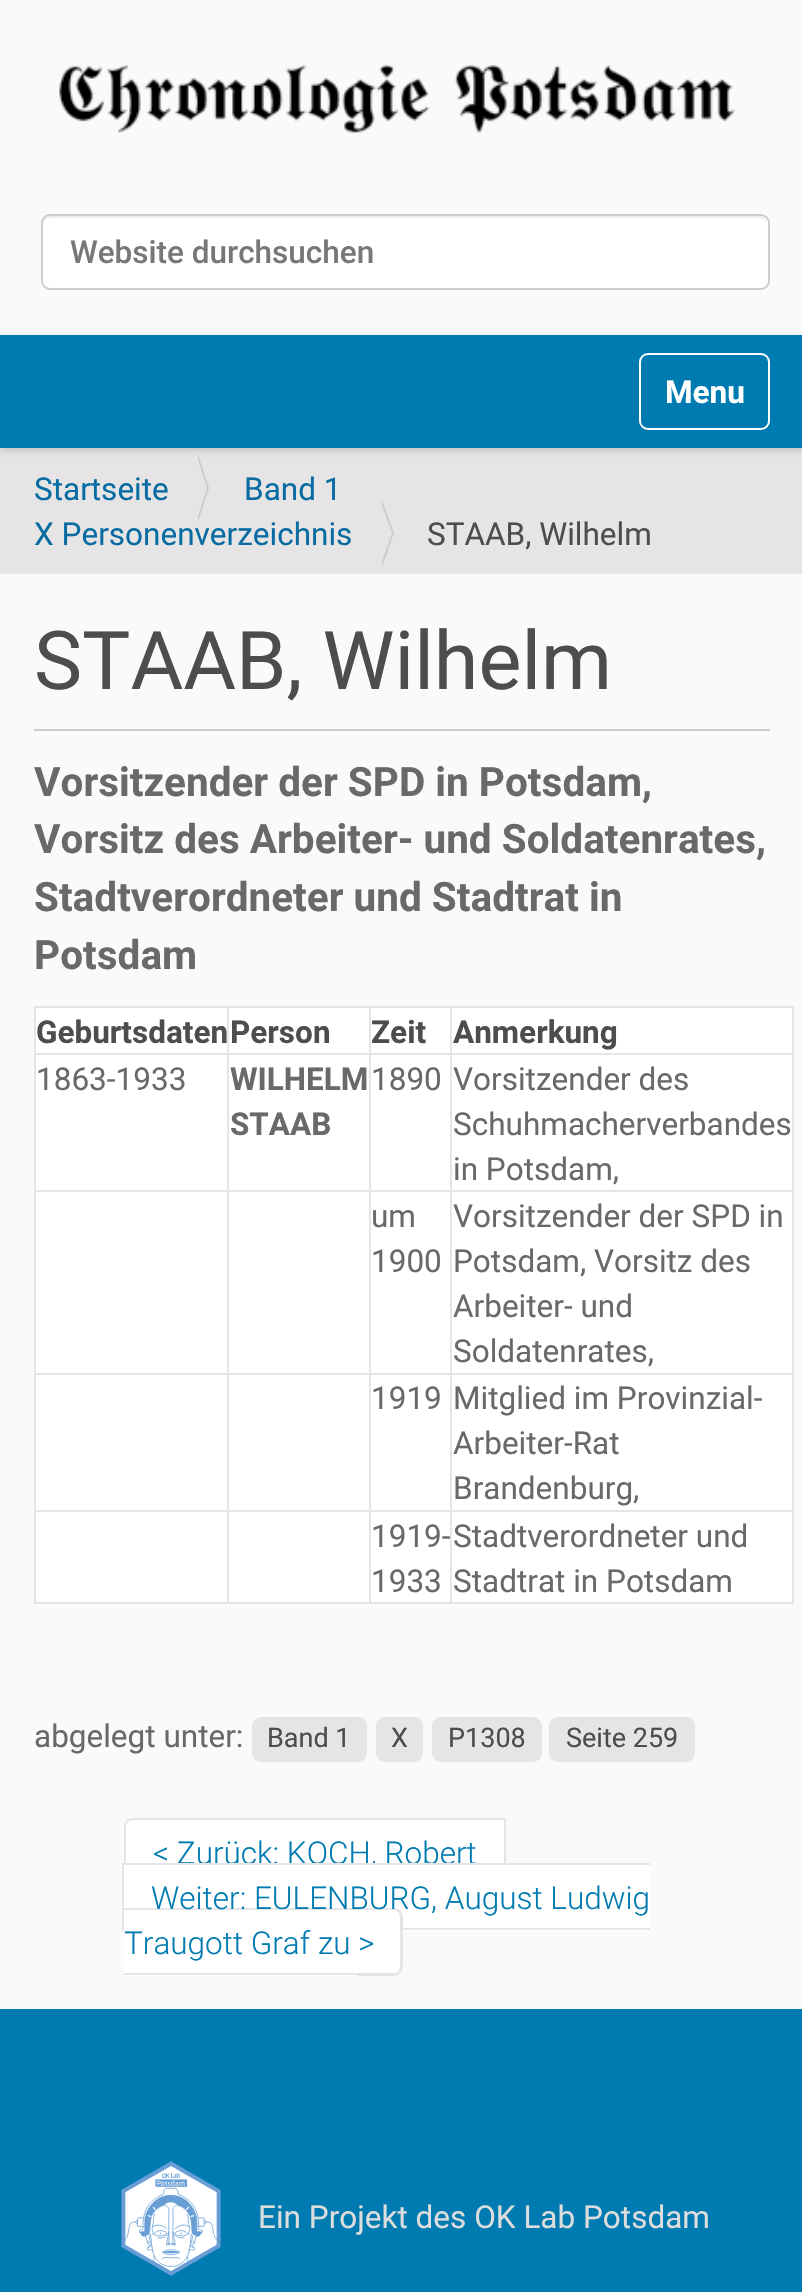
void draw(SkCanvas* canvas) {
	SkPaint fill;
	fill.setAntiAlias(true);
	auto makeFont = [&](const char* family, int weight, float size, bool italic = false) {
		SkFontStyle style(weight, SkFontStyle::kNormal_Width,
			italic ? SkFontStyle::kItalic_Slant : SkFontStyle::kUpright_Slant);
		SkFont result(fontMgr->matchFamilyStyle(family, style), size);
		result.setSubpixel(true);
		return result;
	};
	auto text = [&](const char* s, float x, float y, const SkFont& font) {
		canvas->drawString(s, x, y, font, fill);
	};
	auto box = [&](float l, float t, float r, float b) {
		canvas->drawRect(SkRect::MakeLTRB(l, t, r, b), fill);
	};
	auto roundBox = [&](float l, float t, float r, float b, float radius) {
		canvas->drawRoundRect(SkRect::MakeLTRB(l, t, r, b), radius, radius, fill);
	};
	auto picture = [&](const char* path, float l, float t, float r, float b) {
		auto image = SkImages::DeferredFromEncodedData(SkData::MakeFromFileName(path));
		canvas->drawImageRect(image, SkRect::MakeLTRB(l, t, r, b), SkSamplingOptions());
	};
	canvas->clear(0xFFFAFAFA);
	picture("image0.png", 59, 64, 735, 134);
	fill.setColor(0xFFFFFFFF);
	roundBox(41, 214, 770, 290, 9);
	fill.setColor(0xFFECECEC);
	canvas->drawPath(SkPathBuilder().moveTo(50, 218).lineTo(760, 218).cubicTo(764, 218, 767, 221, 767, 225).cubicTo(767, 221, 765, 216, 760, 216).lineTo(50, 216).cubicTo(45, 216, 43, 221, 43, 225).cubicTo(43, 221, 46, 218, 50, 218).close().detach(), fill);
	fill.setStyle(SkPaint::kStroke_Style);
	fill.setStrokeWidth(2);
	fill.setColor(0xFFCCCCCC);
	canvas->drawRoundRect(SkRect::MakeLTRB(42, 215, 769, 289), 8, 8, fill);
	fill.setStyle(SkPaint::kFill_Style);
	fill.setColor(0xFFE6E4E4);
	box(0, 448, 802, 574);
	fill.setColor(0x2B000000);
	fill.setMaskFilter(SkMaskFilter::MakeBlur(kNormal_SkBlurStyle, 3.5f));
	canvas->drawRect(SkRect::MakeLTRB(0, 338, 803, 450), fill);
	fill.setMaskFilter(nullptr);
	fill.setColor(0xFF007BB1);
	box(0, 335, 802, 448);
	fill.setStyle(SkPaint::kStroke_Style);
	fill.setColor(0xFFFFFFFF);
	canvas->drawRoundRect(SkRect::MakeLTRB(640, 354, 769, 429), 8, 8, fill);
	fill.setStyle(SkPaint::kFill_Style);
	fill.setColor(0xFFCCCCCC);
	canvas->drawPath(SkPathBuilder().moveTo(198, 522).lineTo(198, 454).lineTo(209, 488).close().detach(), fill);
	fill.setColor(0xFFE6E4E4);
	canvas->drawPath(SkPathBuilder().moveTo(196, 522).lineTo(196, 454).lineTo(207, 488).close().detach(), fill);
	fill.setColor(0xFFCCCCCC);
	canvas->drawPath(SkPathBuilder().moveTo(382, 567).lineTo(382, 500).lineTo(394, 533).close().detach(), fill);
	fill.setColor(0xFFE6E4E4);
	canvas->drawPath(SkPathBuilder().moveTo(380, 567).lineTo(380, 500).lineTo(392, 533).close().detach(), fill);
	fill.setColor(0xFFCCCCCC);
	box(34, 729, 770, 731);
	fill.setColor(0xFFFFFFFF);
	roundBox(34, 1006, 794, 1604, 9);
	fill.setColor(0xFFE5E5E5);
	box(34, 1006, 794, 1008);
	box(792, 1006, 794, 1604);
	box(34, 1602, 794, 1604);
	box(34, 1006, 36, 1604);
	box(450, 1053, 794, 1055);
	box(450, 1190, 794, 1192);
	box(450, 1373, 794, 1375);
	box(450, 1510, 794, 1512);
	box(450, 1510, 452, 1604);
	box(369, 1510, 452, 1512);
	box(450, 1373, 452, 1512);
	box(369, 1373, 452, 1375);
	box(450, 1190, 452, 1375);
	box(369, 1190, 452, 1192);
	box(450, 1053, 452, 1193);
	box(369, 1053, 452, 1055);
	box(369, 1510, 371, 1604);
	box(227, 1510, 371, 1512);
	box(369, 1373, 371, 1512);
	box(227, 1373, 371, 1375);
	box(369, 1190, 371, 1375);
	box(227, 1190, 371, 1192);
	box(369, 1053, 371, 1193);
	box(227, 1053, 371, 1055);
	box(227, 1510, 229, 1604);
	box(34, 1510, 230, 1512);
	box(227, 1373, 229, 1512);
	box(34, 1373, 230, 1375);
	box(227, 1190, 229, 1375);
	box(34, 1190, 230, 1192);
	box(227, 1053, 229, 1193);
	box(34, 1053, 230, 1055);
	box(227, 1006, 229, 1055);
	box(369, 1006, 371, 1055);
	box(450, 1006, 452, 1055);
	roundBox(252, 1717, 367, 1762, 9);
	roundBox(376, 1717, 423, 1762, 9);
	roundBox(432, 1717, 542, 1762, 9);
	roundBox(549, 1717, 695, 1762, 9);
	fill.setColor(0xFFFFFFFF);
	canvas->drawPath(SkPathBuilder().moveTo(133, 1818).lineTo(169, 1818).lineTo(169, 1886).lineTo(133, 1886).cubicTo(128, 1886, 124, 1882, 124, 1877).lineTo(124, 1827).cubicTo(124, 1822, 128, 1818, 133, 1818).close().detach(), fill);
	fill.setColor(0xFFE5E5E5);
	canvas->drawPath(SkPathBuilder(SkPathFillType::kEvenOdd).moveTo(133, 1818).lineTo(169, 1818).lineTo(169, 1886).lineTo(133, 1886).cubicTo(128, 1886, 124, 1881, 124, 1876).lineTo(124, 1827).cubicTo(124, 1822, 128, 1818, 133, 1818).close().moveTo(133, 1820).lineTo(169, 1820).lineTo(169, 1883).lineTo(133, 1883).cubicTo(129, 1883, 126, 1880, 126, 1876).lineTo(126, 1827).cubicTo(126, 1823, 129, 1820, 133, 1820).close().detach(), fill);
	fill.setColor(0xFFFFFFFF);
	box(169, 1820, 504, 1863);
	fill.setColor(0xFFE5E5E5);
	box(169, 1818, 506, 1820);
	box(504, 1818, 506, 1863);
	fill.setColor(0xFFFFFFFF);
	box(124, 1931, 358, 1976);
	fill.setColor(0xFFE5E5E5);
	box(124, 1973, 358, 1975);
	fill.setColor(0xFF007BB1);
	box(0, 2009, 802, 2292);
	picture("image1.png", 121, 2161, 221, 2276);
	auto font1 = makeFont("Roboto", 500, 31.5f);
	fill.setColor(0xFF777777);
	text("Website durchsuchen", 70, 263, font1);
	auto font2 = makeFont("Roboto", 700, 31.5f);
	fill.setColor(0xFFFFFFFF);
	text("Menu", 665, 403, font2);
	auto font3 = makeFont("Roboto", 400, 31.5f);
	fill.setColor(0xFF086CA3);
	text("Startseite", 34, 500, font3);
	text("Band 1", 244, 500, font3);
	text("X Personenverzeichnis", 34, 545, font3);
	fill.setColor(0xFF4D4D4D);
	text("STAAB, Wilhelm", 427, 545, font3);
	auto font4 = makeFont("Roboto", 400, 81);
	text("STAAB, Wilhelm", 34, 689, font4);
	auto font5 = makeFont("Roboto", 700, 40.5f);
	fill.setColor(0xFF696969);
	text("Vorsitzender der SPD in Potsdam,", 34, 796, font5);
	text("Vorsitz des Arbeiter- und Soldatenrates,", 34, 853, font5);
	text("Stadtverordneter und Stadtrat in", 34, 911, font5);
	text("Potsdam", 34, 969, font5);
	fill.setColor(0xFF4D4D4D);
	text("Geburtsdaten", 36, 1043, font2);
	text("Person", 230, 1043, font2);
	text("Zeit", 371, 1043, font2);
	text("Anmerkung", 453, 1043, font2);
	fill.setColor(0xFF696969);
	text("1863-1933", 36, 1090, font3);
	text("WILHELM", 230, 1090, font2);
	text("STAAB", 230, 1135, font2);
	text("1890", 371, 1090, font3);
	text("Vorsitzender des", 453, 1090, font3);
	text("Schuhmacherverbandes", 453, 1135, font3);
	text("in Potsdam,", 453, 1180, font3);
	text("um", 371, 1227, font3);
	text("1900", 371, 1272, font3);
	text("Vorsitzender der SPD in", 453, 1227, font3);
	text("Potsdam, Vorsitz des", 453, 1272, font3);
	text("Arbeiter- und", 453, 1317, font3);
	text("Soldatenrates,", 453, 1362, font3);
	text("1919", 371, 1409, font3);
	text("Mitglied im Provinzial-", 453, 1409, font3);
	text("Arbeiter-Rat", 453, 1454, font3);
	text("Brandenburg,", 453, 1499, font3);
	text("1919-", 371, 1547, font3);
	text("1933", 371, 1592, font3);
	text("Stadtverordneter und", 453, 1547, font3);
	text("Stadtrat in Potsdam", 453, 1592, font3);
	text("abgelegt unter:", 34, 1747, font3);
	auto font6 = makeFont("Roboto", 400, 27);
	fill.setColor(0xFF4D4D4D);
	text("Band 1", 267, 1747, font6);
	text("X", 391, 1747, font6);
	text("P1308", 448, 1747, font6);
	text("Seite 259", 566, 1747, font6);
	auto font7 = makeFont("Roboto", 300, 31.5f);
	fill.setColor(0xFF007BB1);
	text("< Zurück: KOCH, Robert", 153, 1864, font7);
	fill.setColor(0xFFFFFFFF);
	box(124, 1865, 650, 1931);
	fill.setColor(0xFFE5E5E5);
	box(122, 1863, 650, 1865);
	box(403, 1928, 650, 1930);
	box(122, 1863, 124, 1931);
	box(124, 1908, 358, 1910);
	fill.setColor(0xFFFFFFFF);
	canvas->drawPath(SkPathBuilder().moveTo(358, 1908).lineTo(394, 1908).cubicTo(399, 1908, 403, 1912, 403, 1917).lineTo(403, 1967).cubicTo(403, 1972, 399, 1976, 394, 1976).lineTo(358, 1976).close().detach(), fill);
	fill.setColor(0xFFE5E5E5);
	canvas->drawPath(SkPathBuilder(SkPathFillType::kEvenOdd).moveTo(358, 1908).lineTo(394, 1908).cubicTo(399, 1908, 403, 1912, 403, 1917).lineTo(403, 1966).cubicTo(403, 1971, 399, 1976, 394, 1976).lineTo(358, 1976).close().moveTo(358, 1910).lineTo(394, 1910).cubicTo(397, 1910, 400, 1913, 400, 1917).lineTo(400, 1966).cubicTo(400, 1970, 397, 1973, 394, 1973).lineTo(358, 1973).close().detach(), fill);
	fill.setColor(0xFF007BB1);
	text("Traugott Graf zu >", 124, 1954, font7);
	text("Weiter: EULENBURG, August Ludwig", 151, 1909, font7);
	fill.setColor(0xFFDDDDDD);
	text("Ein Projekt des OK Lab Potsdam", 258, 2228, font3);
}
